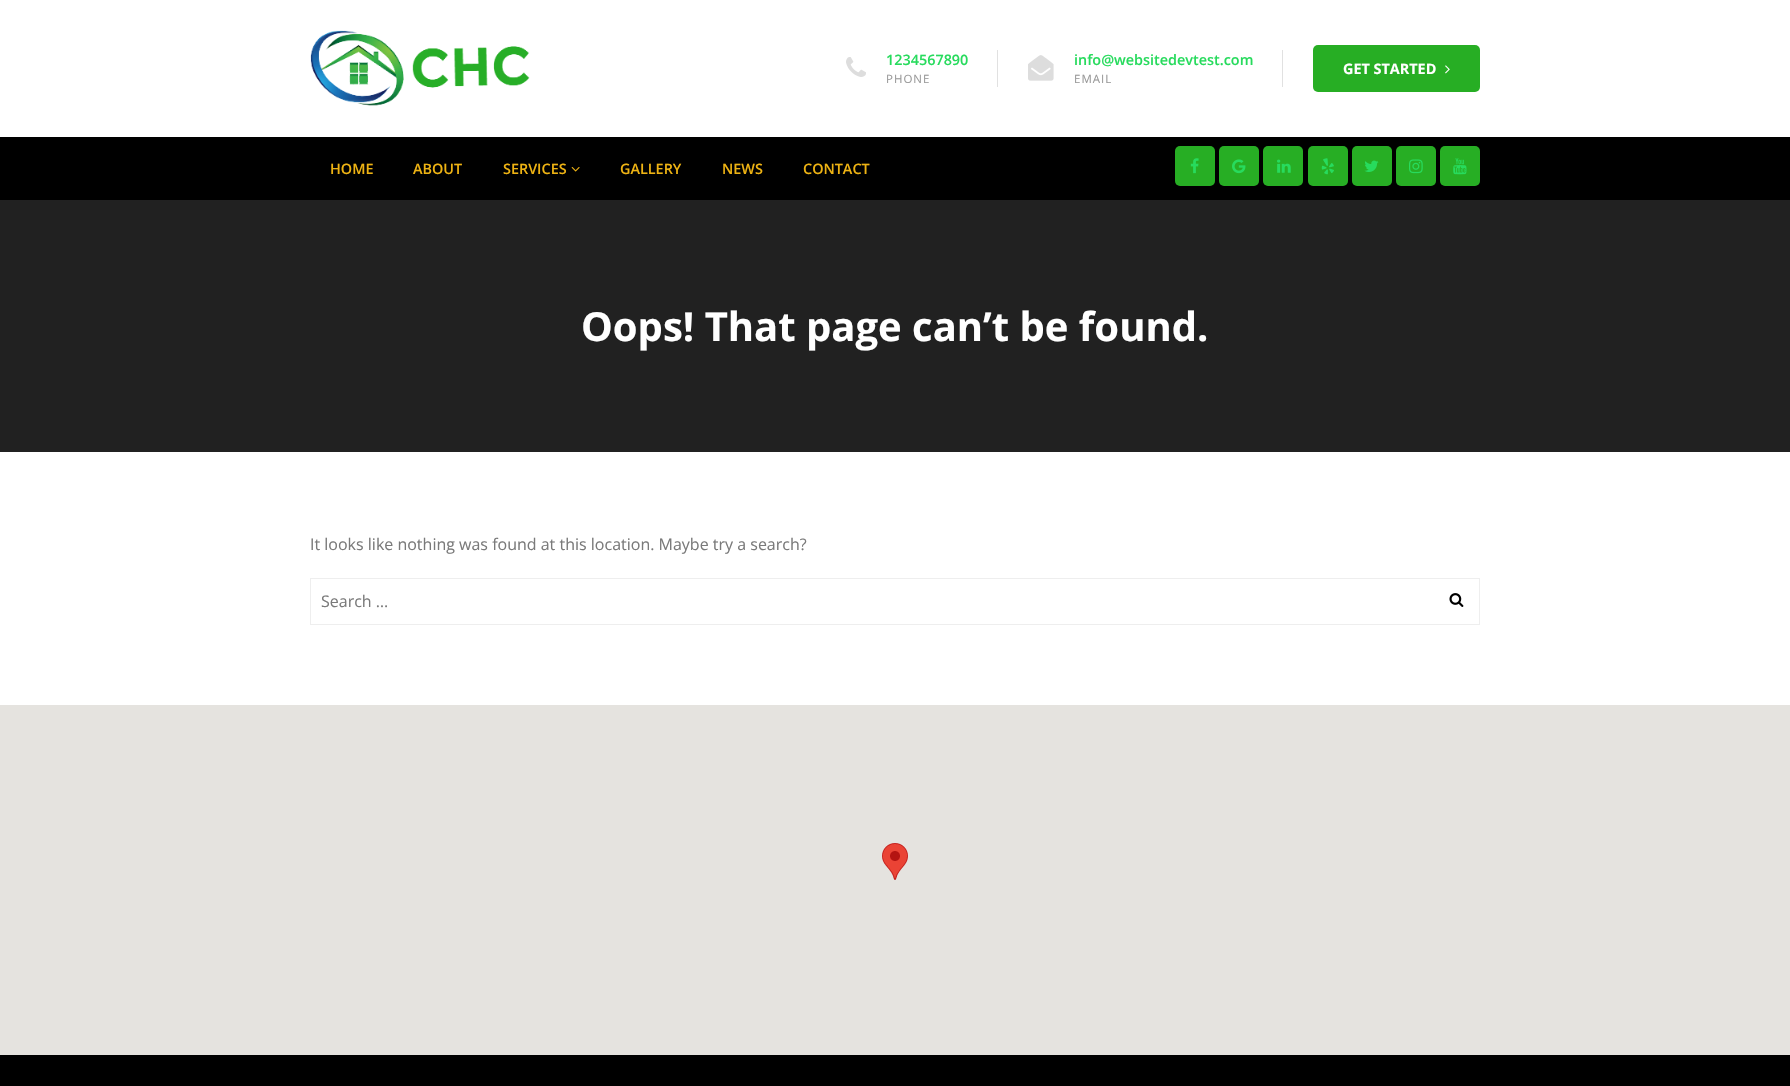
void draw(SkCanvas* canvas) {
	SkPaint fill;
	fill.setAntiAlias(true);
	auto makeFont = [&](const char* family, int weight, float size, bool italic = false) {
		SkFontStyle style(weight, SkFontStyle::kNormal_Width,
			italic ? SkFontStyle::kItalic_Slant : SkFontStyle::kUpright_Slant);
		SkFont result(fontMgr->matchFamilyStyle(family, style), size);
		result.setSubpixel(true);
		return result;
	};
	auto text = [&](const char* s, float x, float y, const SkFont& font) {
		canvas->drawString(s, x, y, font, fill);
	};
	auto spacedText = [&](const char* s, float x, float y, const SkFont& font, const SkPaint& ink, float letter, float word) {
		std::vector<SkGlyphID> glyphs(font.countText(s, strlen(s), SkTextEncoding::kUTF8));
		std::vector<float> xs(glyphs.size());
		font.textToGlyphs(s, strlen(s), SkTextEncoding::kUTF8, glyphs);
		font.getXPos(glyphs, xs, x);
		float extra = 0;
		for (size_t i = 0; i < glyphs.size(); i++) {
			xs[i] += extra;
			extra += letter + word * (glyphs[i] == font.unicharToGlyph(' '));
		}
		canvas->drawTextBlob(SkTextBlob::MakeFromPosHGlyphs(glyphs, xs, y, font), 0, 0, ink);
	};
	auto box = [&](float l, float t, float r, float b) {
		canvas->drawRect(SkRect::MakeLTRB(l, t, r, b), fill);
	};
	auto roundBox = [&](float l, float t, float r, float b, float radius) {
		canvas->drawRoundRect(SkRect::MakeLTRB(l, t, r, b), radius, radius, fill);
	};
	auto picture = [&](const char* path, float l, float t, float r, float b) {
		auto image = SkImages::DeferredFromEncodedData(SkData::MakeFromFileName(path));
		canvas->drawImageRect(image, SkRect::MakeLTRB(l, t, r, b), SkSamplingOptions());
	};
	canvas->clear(0xFFFFFFFF);
	picture("image0.png", 310, 30, 530, 106);
	picture("image1.png", 846, 57, 866, 77);
	fill.setColor(0xFFE1E1E1);
	box(997, 50, 998, 87);
	picture("image2.png", 1028, 55, 1054, 81);
	box(1282, 50, 1283, 87);
	fill.setColor(0xFF27AE24);
	roundBox(1313, 45, 1480, 92, 5);
	picture("image3.png", 1445, 65, 1450, 74);
	fill.setColor(0xFF000000);
	box(0, 137, 1790, 200);
	picture("image4.png", 571, 167, 580, 172);
	fill.setColor(0xFF27AE24);
	roundBox(1175, 146, 1215, 186, 5);
	picture("image5.png", 1190, 158, 1199, 174);
	roundBox(1219, 146, 1259, 186, 5);
	picture("image6.png", 1232, 159, 1246, 174);
	roundBox(1263, 146, 1303, 186, 5);
	picture("image7.png", 1277, 159, 1291, 173);
	roundBox(1308, 146, 1348, 186, 5);
	picture("image8.png", 1321, 158, 1334, 175);
	roundBox(1352, 146, 1392, 186, 5);
	picture("image9.png", 1364, 160, 1379, 172);
	roundBox(1396, 146, 1436, 186, 5);
	picture("image10.png", 1409, 159, 1423, 174);
	roundBox(1440, 146, 1480, 186, 5);
	picture("image11.png", 1453, 158, 1467, 175);
	fill.setColor(0xFF212121);
	box(0, 200, 1790, 452);
	fill.setStyle(SkPaint::kStroke_Style);
	fill.setStrokeWidth(1);
	fill.setColor(0xFFEEEEEE);
	canvas->drawRect(SkRect::MakeLTRB(310.5f, 578.5f, 1479.5f, 624.5f), fill);
	picture("image12.png", 1449, 593, 1464, 607);
	fill.setStyle(SkPaint::kFill_Style);
	fill.setColor(0xFFE5E3DF);
	box(0, 705, 1790, 1055);
	picture("image13.png", 882, 843, 908, 880);
	fill.setColor(0xFF000000);
	box(0, 1055, 1790, 1086);
	auto font1 = makeFont("Open Sans", 600, 14.4f);
	fill.setColor(0xFF27DB5D);
	text("1234567890", 886, 65, font1);
	auto font2 = makeFont("Open Sans", 400, 11.5f);
	fill.setColor(0xFF999999);
	spacedText("PHONE", 886, 83, font2, fill, 1, 0);
	fill.setColor(0xFF27DB5D);
	text("info@websitedevtest.com", 1074, 65, font1);
	fill.setColor(0xFF999999);
	spacedText("EMAIL", 1074, 83, font2, fill, 1, 0);
	auto font3 = makeFont("Open Sans", 700, 14.4f);
	fill.setColor(0xFFFFFFFF);
	text("GET STARTED", 1343, 74, font3);
	fill.setColor(0xFFEEB313);
	text("HOME", 330, 174, font1);
	text("ABOUT", 413, 174, font1);
	text("SERVICES", 503, 174, font1);
	text("GALLERY", 620, 174, font1);
	text("NEWS", 722, 174, font1);
	text("CONTACT", 803, 174, font1);
	auto font4 = makeFont("Open Sans", 700, 40);
	fill.setColor(0xFFFFFFFF);
	text("Oops! That page can’t be found.", 581, 341, font4);
	auto font5 = makeFont("Open Sans", 400, 16);
	fill.setColor(0xFF7A7A7A);
	text("It looks like nothing was found at this location. Maybe try a search?", 310, 550, font5);
	text("Search …", 321, 607, font5);
}
